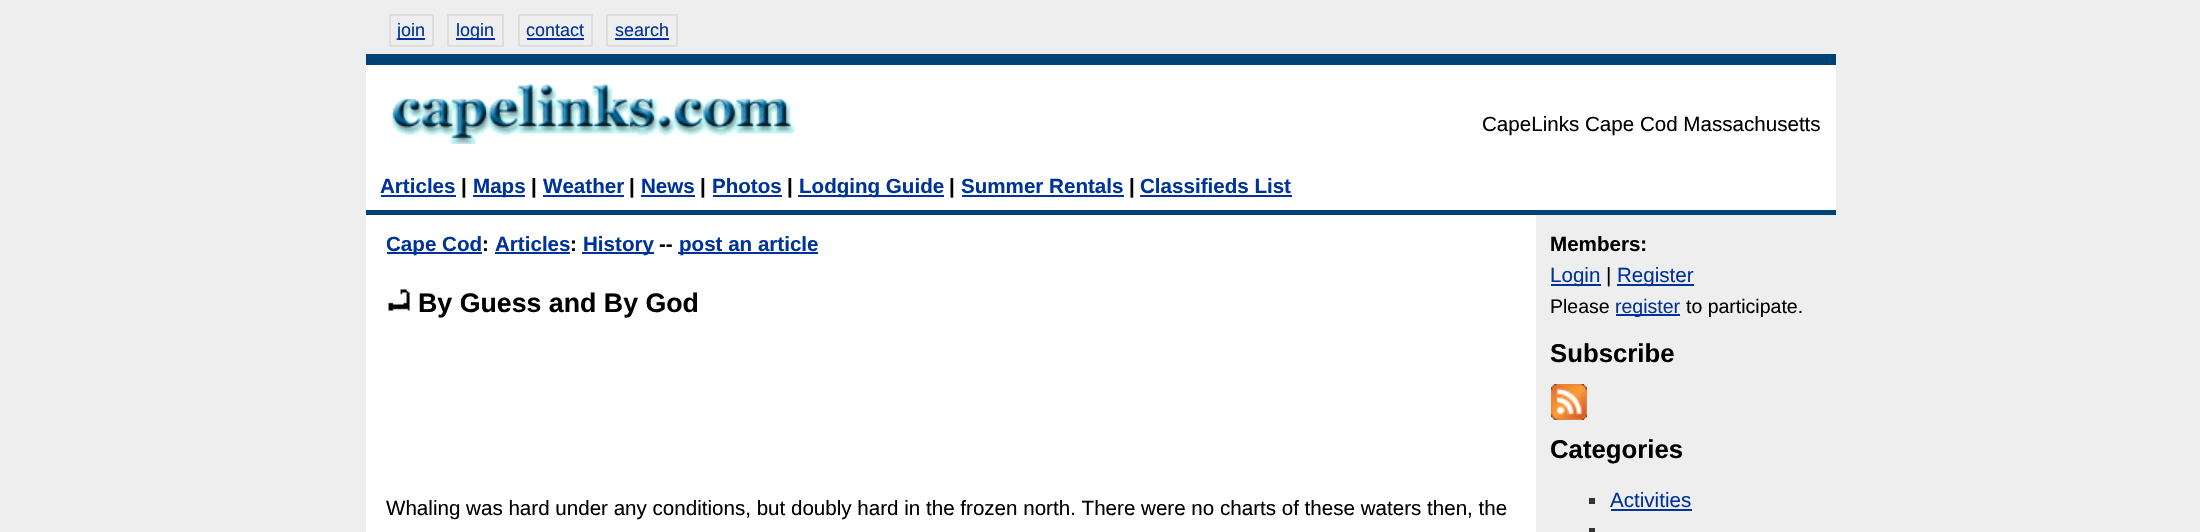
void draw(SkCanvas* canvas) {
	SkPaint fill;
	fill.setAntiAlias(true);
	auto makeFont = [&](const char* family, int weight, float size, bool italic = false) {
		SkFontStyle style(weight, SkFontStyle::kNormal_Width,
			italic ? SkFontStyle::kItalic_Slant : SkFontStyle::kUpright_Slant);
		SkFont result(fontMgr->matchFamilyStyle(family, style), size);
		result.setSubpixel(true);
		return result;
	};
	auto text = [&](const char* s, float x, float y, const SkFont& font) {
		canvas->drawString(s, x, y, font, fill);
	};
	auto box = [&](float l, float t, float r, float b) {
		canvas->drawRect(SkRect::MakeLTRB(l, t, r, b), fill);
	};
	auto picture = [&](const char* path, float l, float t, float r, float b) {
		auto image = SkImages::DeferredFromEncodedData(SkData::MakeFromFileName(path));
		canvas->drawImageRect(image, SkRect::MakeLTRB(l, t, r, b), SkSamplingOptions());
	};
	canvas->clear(0xFFEEEEEE);
	fill.setStyle(SkPaint::kStroke_Style);
	fill.setStrokeWidth(2);
	fill.setColor(0xFFDEDEDE);
	canvas->drawRect(SkRect::MakeLTRB(390, 15, 433, 46), fill);
	fill.setStyle(SkPaint::kFill_Style);
	fill.setColor(0xFF003399);
	box(398, 38, 425, 40);
	fill.setStyle(SkPaint::kStroke_Style);
	fill.setColor(0xFFDEDEDE);
	canvas->drawRect(SkRect::MakeLTRB(448, 15, 503, 46), fill);
	fill.setStyle(SkPaint::kFill_Style);
	fill.setColor(0xFF003399);
	box(456, 38, 495, 40);
	fill.setStyle(SkPaint::kStroke_Style);
	fill.setColor(0xFFDEDEDE);
	canvas->drawRect(SkRect::MakeLTRB(519, 15, 592, 46), fill);
	fill.setStyle(SkPaint::kFill_Style);
	fill.setColor(0xFF003399);
	box(527, 38, 584, 40);
	fill.setStyle(SkPaint::kStroke_Style);
	fill.setColor(0xFFDEDEDE);
	canvas->drawRect(SkRect::MakeLTRB(607, 15, 677, 46), fill);
	fill.setStyle(SkPaint::kFill_Style);
	fill.setColor(0xFF003399);
	box(615, 38, 669, 40);
	fill.setColor(0xFFFFFFFF);
	box(366, 65, 1836, 210);
	fill.setColor(0xFF004276);
	box(366, 54, 1836, 65);
	box(366, 210, 1836, 215);
	picture("image0.png", 391, 83, 796, 144);
	fill.setColor(0xFF003399);
	box(381, 195, 456, 197);
	box(473, 195, 525, 197);
	box(543, 195, 624, 197);
	box(641, 195, 695, 197);
	box(713, 195, 782, 197);
	box(798, 195, 944, 197);
	box(962, 195, 1124, 197);
	box(1140, 195, 1292, 197);
	fill.setColor(0xFFFFFFFF);
	box(366, 215, 1536, 532);
	fill.setColor(0xFF003399);
	box(387, 252, 482, 254);
	box(495, 252, 570, 254);
	box(582, 252, 654, 254);
	box(678, 252, 818, 254);
	picture("image1.png", 387, 288, 411, 312);
	box(1551, 284, 1601, 286);
	box(1617, 284, 1694, 286);
	box(1616, 314, 1680, 316);
	picture("image2.png", 1551, 384, 1587, 420);
	fill.setColor(0xFF333333);
	box(1589, 498, 1595, 504);
	fill.setColor(0xFF003399);
	box(1611, 509, 1692, 511);
	fill.setColor(0xFF333333);
	box(1589, 528, 1595, 532);
	auto font1 = makeFont("Liberation Sans", 400, 18);
	fill.setColor(0xFF003399);
	text("join", 397, 36, font1);
	text("login", 456, 36, font1);
	text("contact", 526, 36, font1);
	text("search", 615, 36, font1);
	auto font2 = makeFont("Liberation Sans", 400, 20.58f);
	fill.setColor(0xFF000000);
	text("CapeLinks Cape Cod Massachusetts", 1482, 131, font2);
	auto font3 = makeFont("Liberation Sans", 700, 20.58f);
	fill.setColor(0xFF003399);
	text("Articles", 380, 193, font3);
	fill.setColor(0xFF000000);
	text("|", 461, 193, font3);
	fill.setColor(0xFF003399);
	text("Maps", 473, 193, font3);
	fill.setColor(0xFF000000);
	text("|", 531, 193, font3);
	fill.setColor(0xFF003399);
	text("Weather", 543, 193, font3);
	fill.setColor(0xFF000000);
	text("|", 629, 193, font3);
	fill.setColor(0xFF003399);
	text("News", 641, 193, font3);
	fill.setColor(0xFF000000);
	text("|", 700, 193, font3);
	fill.setColor(0xFF003399);
	text("Photos", 712, 193, font3);
	fill.setColor(0xFF000000);
	text("|", 787, 193, font3);
	fill.setColor(0xFF003399);
	text("Lodging Guide", 799, 193, font3);
	fill.setColor(0xFF000000);
	text("|", 949, 193, font3);
	fill.setColor(0xFF003399);
	text("Summer Rentals", 961, 193, font3);
	fill.setColor(0xFF000000);
	text("|", 1129, 193, font3);
	fill.setColor(0xFF003399);
	text("Classifieds List", 1140, 193, font3);
	text("Cape Cod", 386, 251, font3);
	fill.setColor(0xFF000000);
	text(":", 482, 251, font3);
	fill.setColor(0xFF003399);
	text("Articles", 495, 251, font3);
	fill.setColor(0xFF000000);
	text(":", 570, 251, font3);
	fill.setColor(0xFF003399);
	text("History", 583, 251, font3);
	fill.setColor(0xFF000000);
	text("--", 659, 251, font3);
	fill.setColor(0xFF003399);
	text("post an article", 679, 251, font3);
	auto font4 = makeFont("Liberation Sans", 700, 26.75f);
	fill.setColor(0xFF000000);
	text("By Guess and By God", 418, 312, font4);
	text("Whaling was hard under any conditions, but doubly hard in the frozen north. There were no charts of these waters then, the", 386, 515, font2);
	text("Members:", 1550, 251, font3);
	fill.setColor(0xFF003399);
	text("Login", 1550, 282, font2);
	fill.setColor(0xFF000000);
	text("|", 1606, 282, font2);
	fill.setColor(0xFF003399);
	text("Register", 1617, 282, font2);
	auto font5 = makeFont("Liberation Sans", 400, 19.5f);
	fill.setColor(0xFF000000);
	text("Please", 1550, 313, font5);
	fill.setColor(0xFF003399);
	text("register", 1615, 313, font5);
	fill.setColor(0xFF000000);
	text("to participate.", 1686, 313, font5);
	auto font6 = makeFont("Liberation Sans", 700, 25.75f);
	text("Subscribe", 1550, 362, font6);
	text("Categories", 1550, 458, font6);
	fill.setColor(0xFF003399);
	text("Activities", 1610, 507, font2);
}
